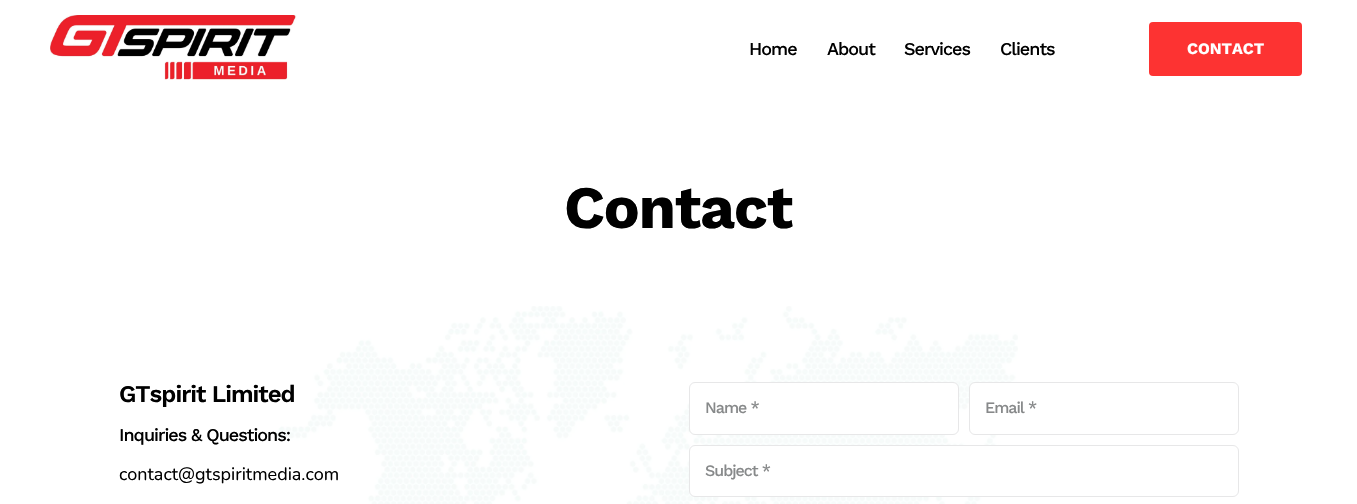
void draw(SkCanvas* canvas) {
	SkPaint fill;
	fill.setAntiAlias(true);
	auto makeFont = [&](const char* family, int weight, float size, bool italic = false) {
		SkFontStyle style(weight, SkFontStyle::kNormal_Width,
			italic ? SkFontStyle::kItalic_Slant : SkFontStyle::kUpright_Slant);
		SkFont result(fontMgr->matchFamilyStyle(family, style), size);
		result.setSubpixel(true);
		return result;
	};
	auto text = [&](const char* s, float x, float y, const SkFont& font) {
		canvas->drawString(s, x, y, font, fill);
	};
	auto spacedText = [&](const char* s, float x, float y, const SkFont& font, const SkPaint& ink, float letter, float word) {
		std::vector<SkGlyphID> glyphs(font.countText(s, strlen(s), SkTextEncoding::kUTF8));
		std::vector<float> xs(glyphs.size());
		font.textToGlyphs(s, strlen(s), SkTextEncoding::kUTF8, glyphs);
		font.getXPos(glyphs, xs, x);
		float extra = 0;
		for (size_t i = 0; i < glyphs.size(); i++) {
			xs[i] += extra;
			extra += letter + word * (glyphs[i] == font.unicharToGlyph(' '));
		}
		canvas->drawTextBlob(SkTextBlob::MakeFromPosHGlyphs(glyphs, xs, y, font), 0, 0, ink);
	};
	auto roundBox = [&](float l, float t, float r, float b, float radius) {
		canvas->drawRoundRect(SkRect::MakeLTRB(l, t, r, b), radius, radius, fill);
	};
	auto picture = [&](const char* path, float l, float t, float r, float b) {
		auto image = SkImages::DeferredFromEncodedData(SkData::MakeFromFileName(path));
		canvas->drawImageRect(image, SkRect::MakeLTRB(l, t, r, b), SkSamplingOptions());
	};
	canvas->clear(0xFFFFFFFF);
	picture("image0.png", 50, 15, 297, 80);
	fill.setColor(0xFFFD3332);
	roundBox(1149, 22, 1302, 76, 4);
	picture("image1.png", 276, 306, 1018, 504);
	fill.setColor(0xFFFFFFFF);
	canvas->drawRoundRect(SkRect::MakeLTRB(689.5f, 382.5f, 958.5f, 434.5f), 5.5f, 5.5f, fill);
	fill.setStyle(SkPaint::kStroke_Style);
	fill.setStrokeWidth(1);
	fill.setColor(0xFFE7E7E8);
	canvas->drawRoundRect(SkRect::MakeLTRB(689.5f, 382.5f, 958.5f, 434.5f), 5.5f, 5.5f, fill);
	fill.setStyle(SkPaint::kFill_Style);
	fill.setColor(0xFFFFFFFF);
	canvas->drawRoundRect(SkRect::MakeLTRB(969.5f, 382.5f, 1238.5f, 434.5f), 5.5f, 5.5f, fill);
	fill.setStyle(SkPaint::kStroke_Style);
	fill.setColor(0xFFE7E7E8);
	canvas->drawRoundRect(SkRect::MakeLTRB(969.5f, 382.5f, 1238.5f, 434.5f), 5.5f, 5.5f, fill);
	fill.setStyle(SkPaint::kFill_Style);
	fill.setColor(0xFFFFFFFF);
	canvas->drawRoundRect(SkRect::MakeLTRB(689.5f, 445.5f, 1238.5f, 496.5f), 5.5f, 5.5f, fill);
	fill.setStyle(SkPaint::kStroke_Style);
	fill.setColor(0xFFE7E7E8);
	canvas->drawRoundRect(SkRect::MakeLTRB(689.5f, 445.5f, 1238.5f, 496.5f), 5.5f, 5.5f, fill);
	auto font1 = makeFont("Work Sans", 500, 18);
	fill.setStyle(SkPaint::kFill_Style);
	fill.setColor(0xFF000000);
	spacedText("Home", 749, 55, font1, fill, -1, 0);
	spacedText("About", 827, 55, font1, fill, -1, 0);
	spacedText("Services", 904, 55, font1, fill, -1, 0);
	spacedText("Clients", 1000, 55, font1, fill, -1, 0);
	auto font2 = makeFont("Work Sans", 700, 16);
	fill.setColor(0xFFFFFFFF);
	text("CONTACT", 1187, 54, font2);
	auto font3 = makeFont("Work Sans", 700, 60);
	fill.setColor(0xFF000000);
	spacedText("Contact", 564, 228, font3, fill, -1, 0);
	auto font4 = makeFont("Work Sans", 600, 24);
	spacedText("GTspirit Limited", 119, 402, font4, fill, -1, 0);
	spacedText("Inquiries & Questions:", 119, 441, font1, fill, -1, 0);
	auto font5 = makeFont("Nunito", 400, 18);
	text("contact@gtspiritmedia.com", 119, 480, font5);
	auto font6 = makeFont("Work Sans", 500, 16);
	fill.setColor(0xFF87898A);
	spacedText("Name *", 705, 413, font6, fill, -1, 0);
	spacedText("Email *", 985, 413, font6, fill, -1, 0);
	spacedText("Subject *", 705, 476, font6, fill, -1, 0);
}
